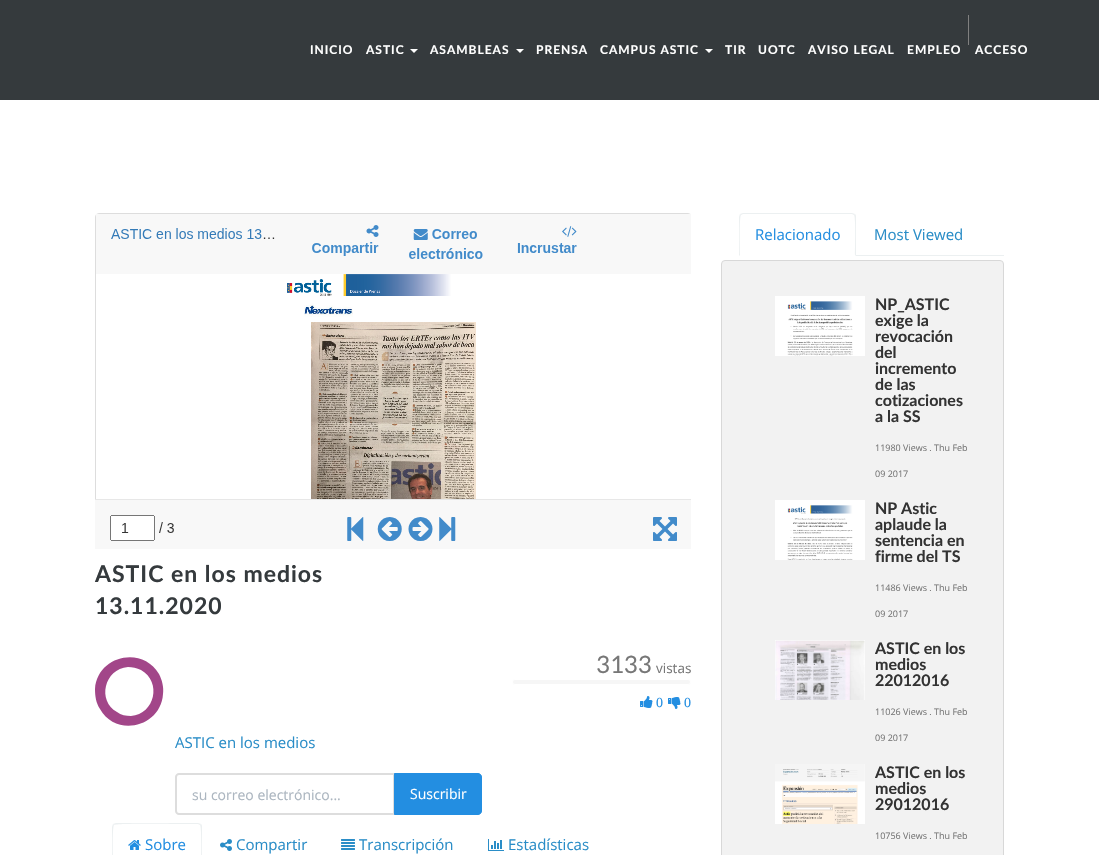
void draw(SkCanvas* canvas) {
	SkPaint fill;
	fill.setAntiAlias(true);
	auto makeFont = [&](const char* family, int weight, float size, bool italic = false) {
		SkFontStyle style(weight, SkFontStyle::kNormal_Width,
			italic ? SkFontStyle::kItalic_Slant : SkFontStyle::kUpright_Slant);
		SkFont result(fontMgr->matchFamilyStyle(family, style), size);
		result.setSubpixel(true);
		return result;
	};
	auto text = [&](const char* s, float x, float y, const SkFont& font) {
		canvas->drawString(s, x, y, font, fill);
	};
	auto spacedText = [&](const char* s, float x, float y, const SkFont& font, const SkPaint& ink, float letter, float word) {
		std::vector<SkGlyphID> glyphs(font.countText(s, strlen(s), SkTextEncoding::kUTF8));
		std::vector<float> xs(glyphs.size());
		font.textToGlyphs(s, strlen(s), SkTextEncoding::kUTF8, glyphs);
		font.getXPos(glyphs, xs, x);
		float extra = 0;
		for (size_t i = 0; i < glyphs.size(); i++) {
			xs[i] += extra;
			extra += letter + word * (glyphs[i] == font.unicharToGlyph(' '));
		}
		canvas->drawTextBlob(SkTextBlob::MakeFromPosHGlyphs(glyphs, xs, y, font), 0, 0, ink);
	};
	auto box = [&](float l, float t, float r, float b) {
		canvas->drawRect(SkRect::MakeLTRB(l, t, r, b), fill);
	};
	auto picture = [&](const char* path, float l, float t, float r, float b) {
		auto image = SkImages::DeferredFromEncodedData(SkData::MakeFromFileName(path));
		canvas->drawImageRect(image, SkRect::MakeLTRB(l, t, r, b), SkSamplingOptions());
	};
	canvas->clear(0xFFFFFFFF);
	fill.setColor(0xFF353A3D);
	box(0, 0, 1099, 100);
	fill.setColor(0xFF808080);
	box(968, 15, 969, 45);
	fill.setColor(0xFFFFFFFF);
	canvas->drawPath(SkPathBuilder().moveTo(410, 49).lineTo(418, 49).lineTo(414, 53).close().detach(), fill);
	canvas->drawPath(SkPathBuilder().moveTo(516, 49).lineTo(524, 49).lineTo(520, 53).close().detach(), fill);
	canvas->drawPath(SkPathBuilder().moveTo(705, 49).lineTo(713, 49).lineTo(709, 53).close().detach(), fill);
	picture("image0.png", 95, 213, 691, 549);
	fill.setColor(0xFFF6F6F6);
	canvas->drawRoundRect(SkRect::MakeLTRB(512.5f, 679.5f, 690.5f, 684.5f), 2.5f, 2.5f, fill);
	fill.setStyle(SkPaint::kStroke_Style);
	fill.setStrokeWidth(1);
	fill.setColor(0xFFFFFFFF);
	canvas->drawRoundRect(SkRect::MakeLTRB(512.5f, 679.5f, 690.5f, 684.5f), 2.5f, 2.5f, fill);
	picture("image1.png", 640, 696, 653, 708);
	picture("image2.png", 668, 697, 681, 709);
	fill.setStyle(SkPaint::kFill_Style);
	fill.setColor(0xFFA24689);
	canvas->drawPath(SkPathBuilder().moveTo(141, 670).cubicTo(137, 668, 132, 667, 128, 667).cubicTo(104, 669, 97, 701, 117, 712).cubicTo(121, 715, 126, 716, 131, 716).cubicTo(155, 714, 162, 682, 141, 670).close().moveTo(159, 674).cubicTo(162, 680, 164, 687, 163, 694).cubicTo(161, 727, 116, 738, 100, 709).cubicTo(96, 703, 95, 696, 95, 689).cubicTo(97, 656, 142, 645, 159, 674).close().detach(), fill);
	fill.setStyle(SkPaint::kStroke_Style);
	fill.setStrokeWidth(2);
	fill.setColor(0xFFDDDDDD);
	canvas->drawPath(SkPathBuilder().moveTo(179, 774).lineTo(394, 774).lineTo(394, 814).lineTo(179, 814).cubicTo(177.5f, 814, 176, 812.5f, 176, 811).lineTo(176, 777).cubicTo(176, 775.5f, 177.5f, 774, 179, 774).close().detach(), fill);
	fill.setStyle(SkPaint::kFill_Style);
	fill.setColor(0xFF238EE1);
	canvas->drawPath(SkPathBuilder().moveTo(394.5f, 773.5f).lineTo(478, 773.5f).cubicTo(480, 773.5f, 481.5f, 775, 481.5f, 777).lineTo(481.5f, 811).cubicTo(481.5f, 813, 480, 814.5f, 478, 814.5f).lineTo(394.5f, 814.5f).close().detach(), fill);
	fill.setStyle(SkPaint::kStroke_Style);
	fill.setStrokeWidth(1);
	canvas->drawPath(SkPathBuilder().moveTo(394.5f, 773.5f).lineTo(478, 773.5f).cubicTo(480, 773.5f, 481.5f, 775, 481.5f, 777).lineTo(481.5f, 811).cubicTo(481.5f, 813, 480, 814.5f, 478, 814.5f).lineTo(394.5f, 814.5f).close().detach(), fill);
	fill.setStyle(SkPaint::kFill_Style);
	fill.setColor(0xFFECF0F1);
	canvas->drawPath(SkPathBuilder().moveTo(116, 823).lineTo(113, 824).lineTo(114, 825).cubicTo(116, 823, 177, 824, 184, 824).lineTo(198, 824).lineTo(200, 825).lineTo(201, 824).lineTo(198, 823).close().detach(), fill);
	canvas->drawPath(SkPathBuilder().moveTo(202, 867).lineTo(202, 827).cubicTo(202, 826, 202, 825, 201, 824).lineTo(200, 825).cubicTo(202, 827, 201, 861, 201, 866).close().detach(), fill);
	canvas->drawPath(SkPathBuilder().moveTo(112, 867).lineTo(113, 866).cubicTo(113, 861, 112, 827, 114, 825).lineTo(113, 824).lineTo(112, 827).close().detach(), fill);
	picture("image3.png", 128, 840, 141, 850);
	picture("image4.png", 220, 839, 232, 851);
	picture("image5.png", 341, 839, 355, 850);
	picture("image6.png", 488, 839, 504, 851);
	box(856, 255, 1004, 256);
	canvas->drawPath(SkPathBuilder().moveTo(743, 213).lineTo(740, 214).lineTo(741, 215).lineTo(743, 214).lineTo(852, 214).lineTo(854, 215).lineTo(855, 214).lineTo(852, 213).close().detach(), fill);
	canvas->drawPath(SkPathBuilder().moveTo(856, 256).lineTo(856, 217).cubicTo(856, 216, 856, 215, 855, 214).lineTo(854, 215).cubicTo(856, 217, 855, 250, 855, 255).close().detach(), fill);
	canvas->drawPath(SkPathBuilder().moveTo(739, 256).lineTo(740, 255).cubicTo(740, 250, 739, 217, 741, 215).lineTo(740, 214).lineTo(739, 217).close().detach(), fill);
	fill.setColor(0xFFF2F2F2);
	canvas->drawRoundRect(SkRect::MakeLTRB(721.5f, 260.5f, 1003.5f, 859.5f), 3.5f, 3.5f, fill);
	fill.setStyle(SkPaint::kStroke_Style);
	fill.setColor(0xFFD8D8D8);
	canvas->drawRoundRect(SkRect::MakeLTRB(721.5f, 260.5f, 1003.5f, 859.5f), 3.5f, 3.5f, fill);
	picture("image7.png", 775, 296, 865, 356);
	picture("image8.png", 775, 500, 865, 560);
	picture("image9.png", 775, 640, 865, 700);
	picture("image10.png", 775, 764, 865, 824);
	auto font1 = makeFont("Lato", 700, 12);
	fill.setStyle(SkPaint::kFill_Style);
	fill.setColor(0xFFFFFFFF);
	spacedText("INICIO", 310, 54, font1, fill, 1, 0);
	spacedText("ASTIC", 366, 54, font1, fill, 1, 0);
	spacedText("ASAMBLEAS", 430, 54, font1, fill, 1, 0);
	spacedText("PRENSA", 536, 54, font1, fill, 1, 0);
	spacedText("CAMPUS ASTIC", 600, 54, font1, fill, 1, 0);
	spacedText("TIR", 725, 54, font1, fill, 1, 0);
	spacedText("UOTC", 758, 54, font1, fill, 1, 0);
	spacedText("AVISO LEGAL", 808, 54, font1, fill, 1, 0);
	spacedText("EMPLEO", 907, 54, font1, fill, 1, 0);
	spacedText("ACCESO", 975, 54, font1, fill, 1, 0);
	auto font2 = makeFont("Lato", 700, 23);
	fill.setColor(0xFF353A3D);
	spacedText("ASTIC en los medios", 95, 582, font2, fill, 1, 0);
	spacedText("13.11.2020", 95, 614, font2, fill, 1, 0);
	auto font3 = makeFont("Lato", 400, 24);
	fill.setColor(0xFF777777);
	text("3133", 596, 673, font3);
	auto font4 = makeFont("Open Sans", 400, 13.5f);
	text("vistas", 656, 673, font4);
	auto font5 = makeFont("Liberation Serif", 400, 14);
	fill.setColor(0xFF238EE1);
	text("0", 656, 707, font5);
	text("0", 684, 707, font5);
	auto font6 = makeFont("Open Sans", 400, 15);
	fill.setColor(0xFF2A8DC7);
	text("ASTIC en los medios", 175, 748, font6);
	auto font7 = makeFont("Open Sans", 400, 14);
	fill.setColor(0xFFACB6C0);
	text("su correo electrónico...", 192, 800, font7);
	fill.setColor(0xFFFFFFFF);
	text("Suscribir", 410, 799, font7);
	fill.setColor(0xFF238EE1);
	text("Sobre", 145, 850, font6);
	fill.setColor(0xFF2A8DC7);
	text("Compartir", 236, 850, font6);
	text("Transcripción", 359, 850, font6);
	text("Estadísticas", 508, 850, font6);
	fill.setColor(0xFF238EE1);
	text("Relacionado", 755, 240, font6);
	fill.setColor(0xFF2A8DC7);
	text("Most Viewed", 874, 240, font6);
	auto font8 = makeFont("Lato", 700, 16);
	fill.setColor(0xFF333333);
	text("NP_ASTIC", 875, 310, font8);
	text("exige la", 875, 326, font8);
	text("revocación", 875, 342, font8);
	text("del", 875, 358, font8);
	text("incremento", 875, 374, font8);
	text("de las", 875, 390, font8);
	text("cotizaciones", 875, 406, font8);
	text("a la SS", 875, 422, font8);
	auto font9 = makeFont("Open Sans", 400, 9);
	fill.setColor(0xFF777777);
	text("11980 Views . Thu Feb", 875, 451, font9);
	text("09 2017", 875, 477, font9);
	fill.setColor(0xFF333333);
	text("NP Astic", 875, 514, font8);
	text("aplaude la", 875, 530, font8);
	text("sentencia en", 875, 546, font8);
	text("firme del TS", 875, 562, font8);
	fill.setColor(0xFF777777);
	text("11486 Views . Thu Feb", 875, 591, font9);
	text("09 2017", 875, 617, font9);
	fill.setColor(0xFF333333);
	text("ASTIC en los", 875, 654, font8);
	text("medios", 875, 670, font8);
	text("22012016", 875, 686, font8);
	fill.setColor(0xFF777777);
	text("11026 Views . Thu Feb", 875, 715, font9);
	text("09 2017", 875, 741, font9);
	fill.setColor(0xFF333333);
	text("ASTIC en los", 875, 778, font8);
	text("medios", 875, 794, font8);
	text("29012016", 875, 810, font8);
	fill.setColor(0xFF777777);
	text("10756 Views . Thu Feb", 875, 839, font9);
}
